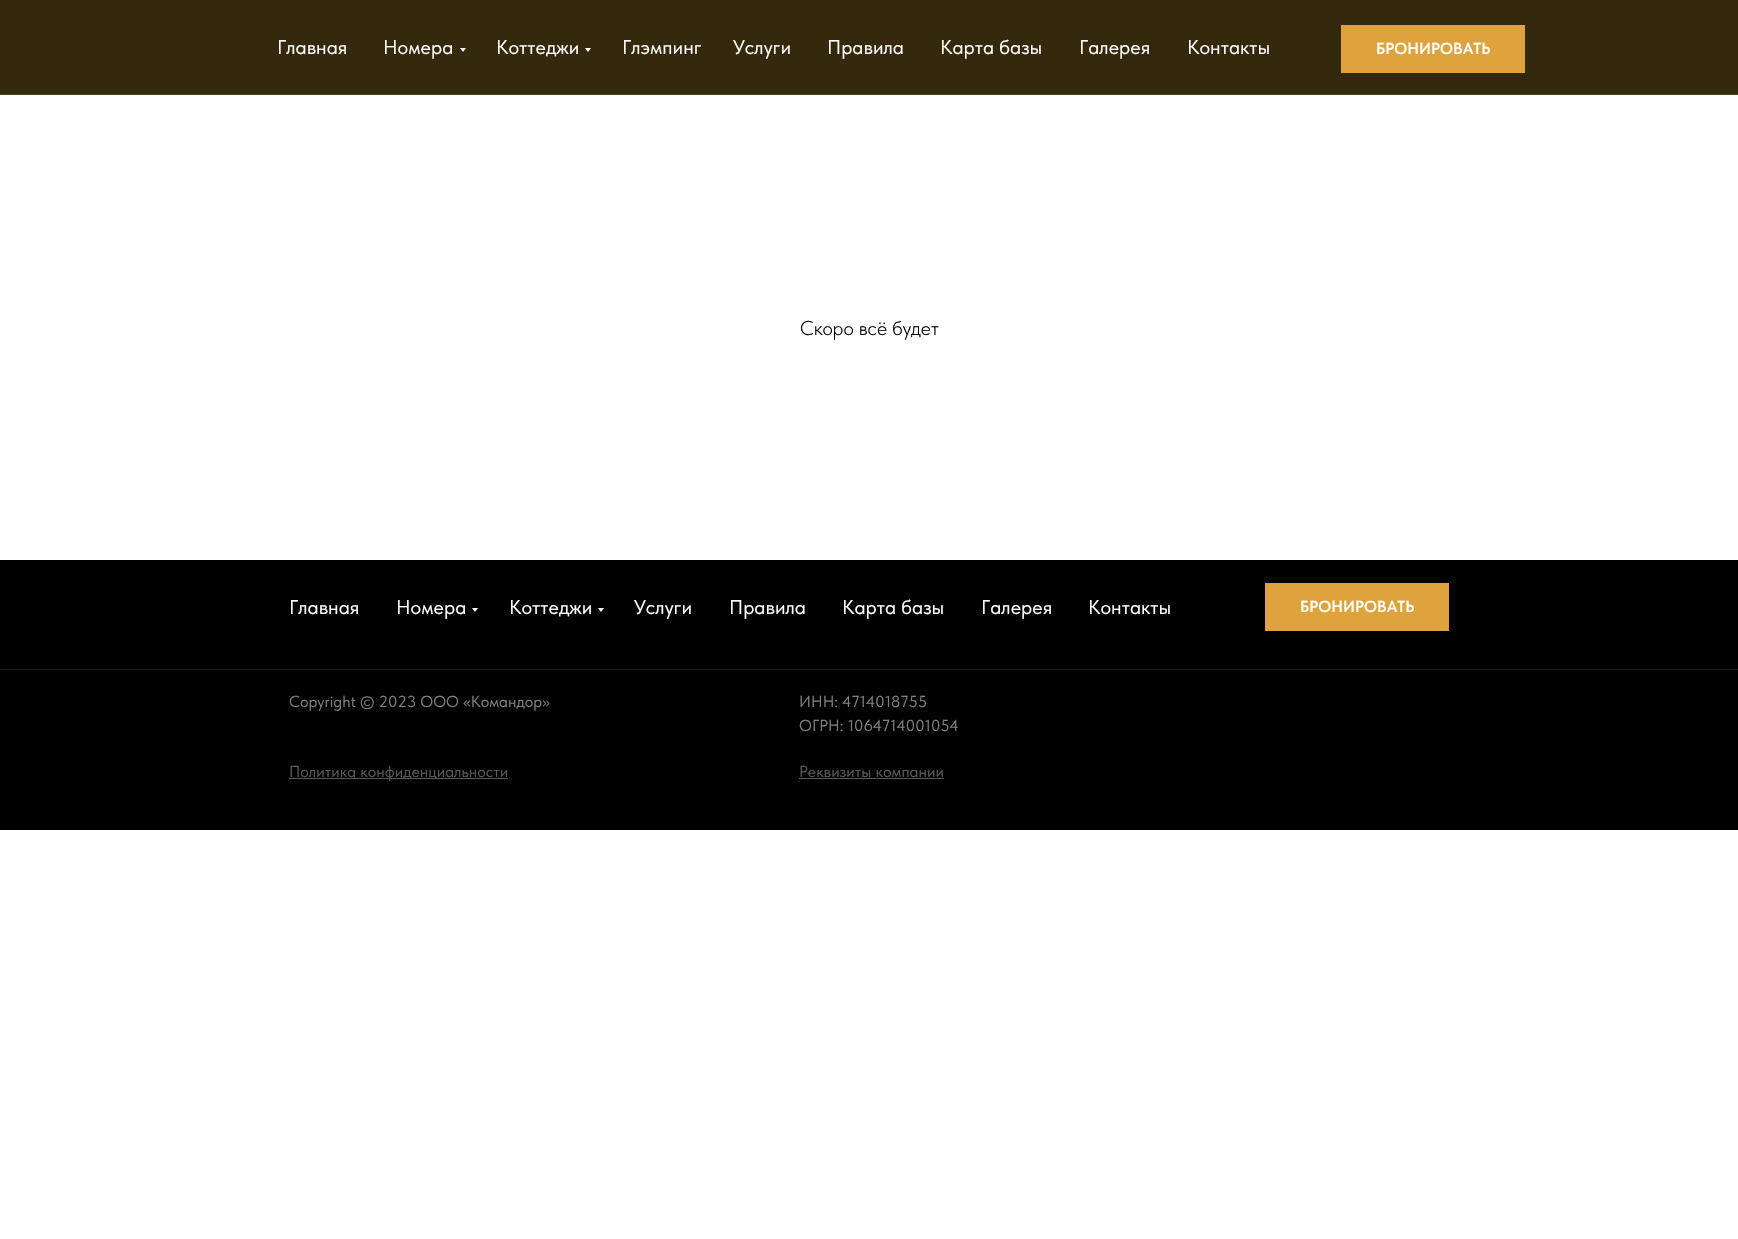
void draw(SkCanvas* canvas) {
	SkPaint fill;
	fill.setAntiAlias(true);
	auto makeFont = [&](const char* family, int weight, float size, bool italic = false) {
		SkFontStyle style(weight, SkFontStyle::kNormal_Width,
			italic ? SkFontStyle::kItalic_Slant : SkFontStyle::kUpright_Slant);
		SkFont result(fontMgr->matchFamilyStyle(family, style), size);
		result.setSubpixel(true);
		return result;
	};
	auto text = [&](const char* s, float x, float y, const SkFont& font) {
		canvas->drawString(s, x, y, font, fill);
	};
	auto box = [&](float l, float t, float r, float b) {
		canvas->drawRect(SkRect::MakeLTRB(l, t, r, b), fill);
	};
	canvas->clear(0xFFFFFFFF);
	fill.setColor(0xFF34280D);
	box(0, 0, 1738, 94);
	fill.setColor(0xFFFFFFFF);
	canvas->drawPath(SkPathBuilder().moveTo(460, 48).lineTo(466, 48).lineTo(463, 52).close().detach(), fill);
	canvas->drawPath(SkPathBuilder().moveTo(585, 48).lineTo(591, 48).lineTo(588, 52).close().detach(), fill);
	fill.setColor(0xFFDEA33C);
	box(1341, 25, 1525, 73);
	fill.setColor(0xFF483E25);
	box(0, 94, 1738, 95);
	fill.setColor(0xFF000000);
	box(0, 560, 1738, 669);
	fill.setColor(0xFFFFFFFF);
	canvas->drawPath(SkPathBuilder().moveTo(472, 608).lineTo(478, 608).lineTo(475, 612).close().detach(), fill);
	canvas->drawPath(SkPathBuilder().moveTo(598, 608).lineTo(604, 608).lineTo(601, 612).close().detach(), fill);
	fill.setColor(0xFFDEA33C);
	box(1265, 583, 1449, 631);
	fill.setColor(0xFF1A1A1A);
	box(0, 669, 1738, 670);
	fill.setColor(0xFF000000);
	box(0, 670, 1738, 830);
	fill.setColor(0xFF595959);
	box(289, 778, 508, 779);
	box(799, 778, 944, 779);
	auto font1 = makeFont("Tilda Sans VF", 400, 20);
	fill.setColor(0xFFFFFFFF);
	text("Главная", 277, 54, font1);
	text("Номера", 383, 54, font1);
	text("Коттеджи", 496, 54, font1);
	text("Глэмпинг", 622, 54, font1);
	text("Услуги", 733, 54, font1);
	text("Правила", 827, 54, font1);
	text("Карта базы", 940, 54, font1);
	text("Галерея", 1079, 54, font1);
	text("Контакты", 1187, 54, font1);
	auto font2 = makeFont("Tilda Sans VF", 600, 16);
	text("БРОНИРОВАТЬ", 1376, 54, font2);
	auto font3 = makeFont("Tilda Sans VF", 300, 20);
	fill.setColor(0xFF000000);
	text("Скоро всё будет", 800, 335, font3);
	fill.setColor(0xFFFFFFFF);
	text("Главная", 289, 614, font1);
	text("Номера", 396, 614, font1);
	text("Коттеджи", 509, 614, font1);
	text("Услуги", 634, 614, font1);
	text("Правила", 729, 614, font1);
	text("Карта базы", 842, 614, font1);
	text("Галерея", 981, 614, font1);
	text("Контакты", 1088, 614, font1);
	text("БРОНИРОВАТЬ", 1300, 612, font2);
	auto font4 = makeFont("Tilda Sans VF", 400, 16);
	fill.setColor(0xFF808080);
	text("Copyright © 2023 ООО «Командор»", 289, 707, font4);
	text("ИНН: 4714018755", 799, 707, font4);
	text("ОГРН: 1064714001054", 799, 731, font4);
	fill.setColor(0xFF595959);
	text("Политика конфиденциальности", 289, 777, font4);
	text("Реквизиты компании", 799, 777, font4);
}
